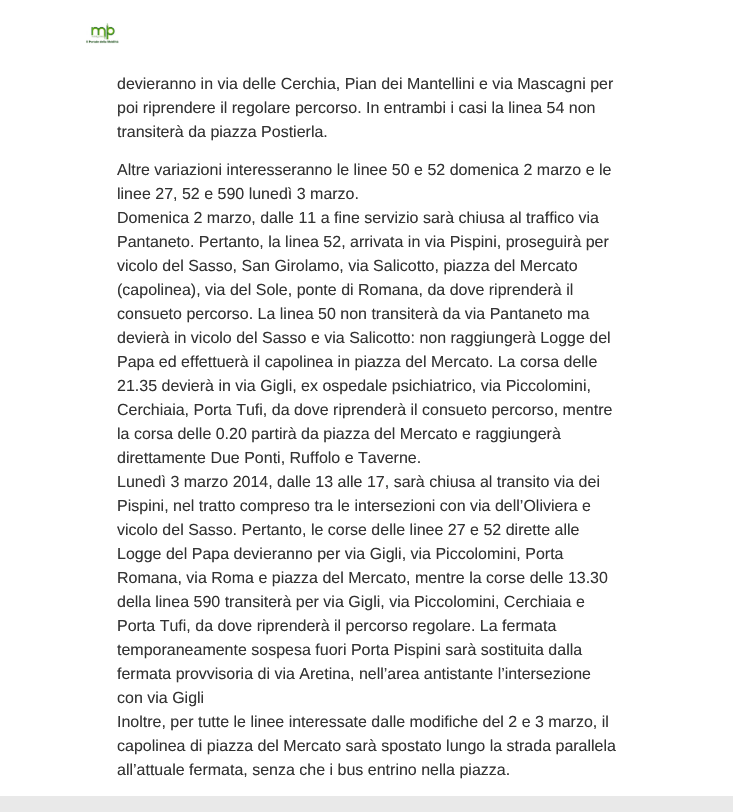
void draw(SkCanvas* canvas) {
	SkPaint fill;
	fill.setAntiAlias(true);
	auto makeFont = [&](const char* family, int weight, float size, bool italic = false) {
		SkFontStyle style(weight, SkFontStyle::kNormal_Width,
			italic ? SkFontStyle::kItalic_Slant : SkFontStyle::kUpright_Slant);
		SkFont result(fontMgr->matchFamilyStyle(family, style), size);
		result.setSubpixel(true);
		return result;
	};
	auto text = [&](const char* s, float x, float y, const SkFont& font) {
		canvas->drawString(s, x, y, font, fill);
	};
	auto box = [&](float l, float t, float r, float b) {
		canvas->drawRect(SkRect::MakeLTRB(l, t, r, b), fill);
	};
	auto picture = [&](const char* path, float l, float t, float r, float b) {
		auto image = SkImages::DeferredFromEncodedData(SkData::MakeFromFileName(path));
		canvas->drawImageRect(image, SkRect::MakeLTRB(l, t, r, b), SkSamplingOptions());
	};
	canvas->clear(0xFFFFFFFF);
	picture("image0.png", 86, 23, 119, 44);
	fill.setColor(0xFFE9E9E9);
	box(0, 796, 733, 812);
	auto font1 = makeFont("Liberation Sans", 400, 16);
	fill.setColor(0xFF333333);
	text("devieranno in via delle Cerchia, Pian dei Mantellini e via Mascagni per", 117, 89, font1);
	text("poi riprendere il regolare percorso. In entrambi i casi la linea 54 non", 117, 113, font1);
	text("transiterà da piazza Postierla.", 117, 137, font1);
	text("Altre variazioni interesseranno le linee 50 e 52 domenica 2 marzo e le", 117, 175, font1);
	text("linee 27, 52 e 590 lunedì 3 marzo.", 117, 199, font1);
	text("Domenica 2 marzo, dalle 11 a fine servizio sarà chiusa al traffico via", 117, 223, font1);
	text("Pantaneto. Pertanto, la linea 52, arrivata in via Pispini, proseguirà per", 117, 247, font1);
	text("vicolo del Sasso, San Girolamo, via Salicotto, piazza del Mercato", 117, 271, font1);
	text("(capolinea), via del Sole, ponte di Romana, da dove riprenderà il", 117, 295, font1);
	text("consueto percorso. La linea 50 non transiterà da via Pantaneto ma", 117, 319, font1);
	text("devierà in vicolo del Sasso e via Salicotto: non raggiungerà Logge del", 117, 343, font1);
	text("Papa ed effettuerà il capolinea in piazza del Mercato. La corsa delle", 117, 367, font1);
	text("21.35 devierà in via Gigli, ex ospedale psichiatrico, via Piccolomini,", 117, 391, font1);
	text("Cerchiaia, Porta Tufi, da dove riprenderà il consueto percorso, mentre", 117, 415, font1);
	text("la corsa delle 0.20 partirà da piazza del Mercato e raggiungerà", 117, 439, font1);
	text("direttamente Due Ponti, Ruffolo e Taverne.", 117, 463, font1);
	text("Lunedì 3 marzo 2014, dalle 13 alle 17, sarà chiusa al transito via dei", 117, 487, font1);
	text("Pispini, nel tratto compreso tra le intersezioni con via dell’Oliviera e", 117, 511, font1);
	text("vicolo del Sasso. Pertanto, le corse delle linee 27 e 52 dirette alle", 117, 535, font1);
	text("Logge del Papa devieranno per via Gigli, via Piccolomini, Porta", 117, 559, font1);
	text("Romana, via Roma e piazza del Mercato, mentre la corse delle 13.30", 117, 583, font1);
	text("della linea 590 transiterà per via Gigli, via Piccolomini, Cerchiaia e", 117, 607, font1);
	text("Porta Tufi, da dove riprenderà il percorso regolare. La fermata", 117, 631, font1);
	text("temporaneamente sospesa fuori Porta Pispini sarà sostituita dalla", 117, 655, font1);
	text("fermata provvisoria di via Aretina, nell’area antistante l’intersezione", 117, 679, font1);
	text("con via Gigli", 117, 703, font1);
	text("Inoltre, per tutte le linee interessate dalle modifiche del 2 e 3 marzo, il", 117, 727, font1);
	text("capolinea di piazza del Mercato sarà spostato lungo la strada parallela", 117, 751, font1);
	text("all’attuale fermata, senza che i bus entrino nella piazza.", 117, 775, font1);
}
